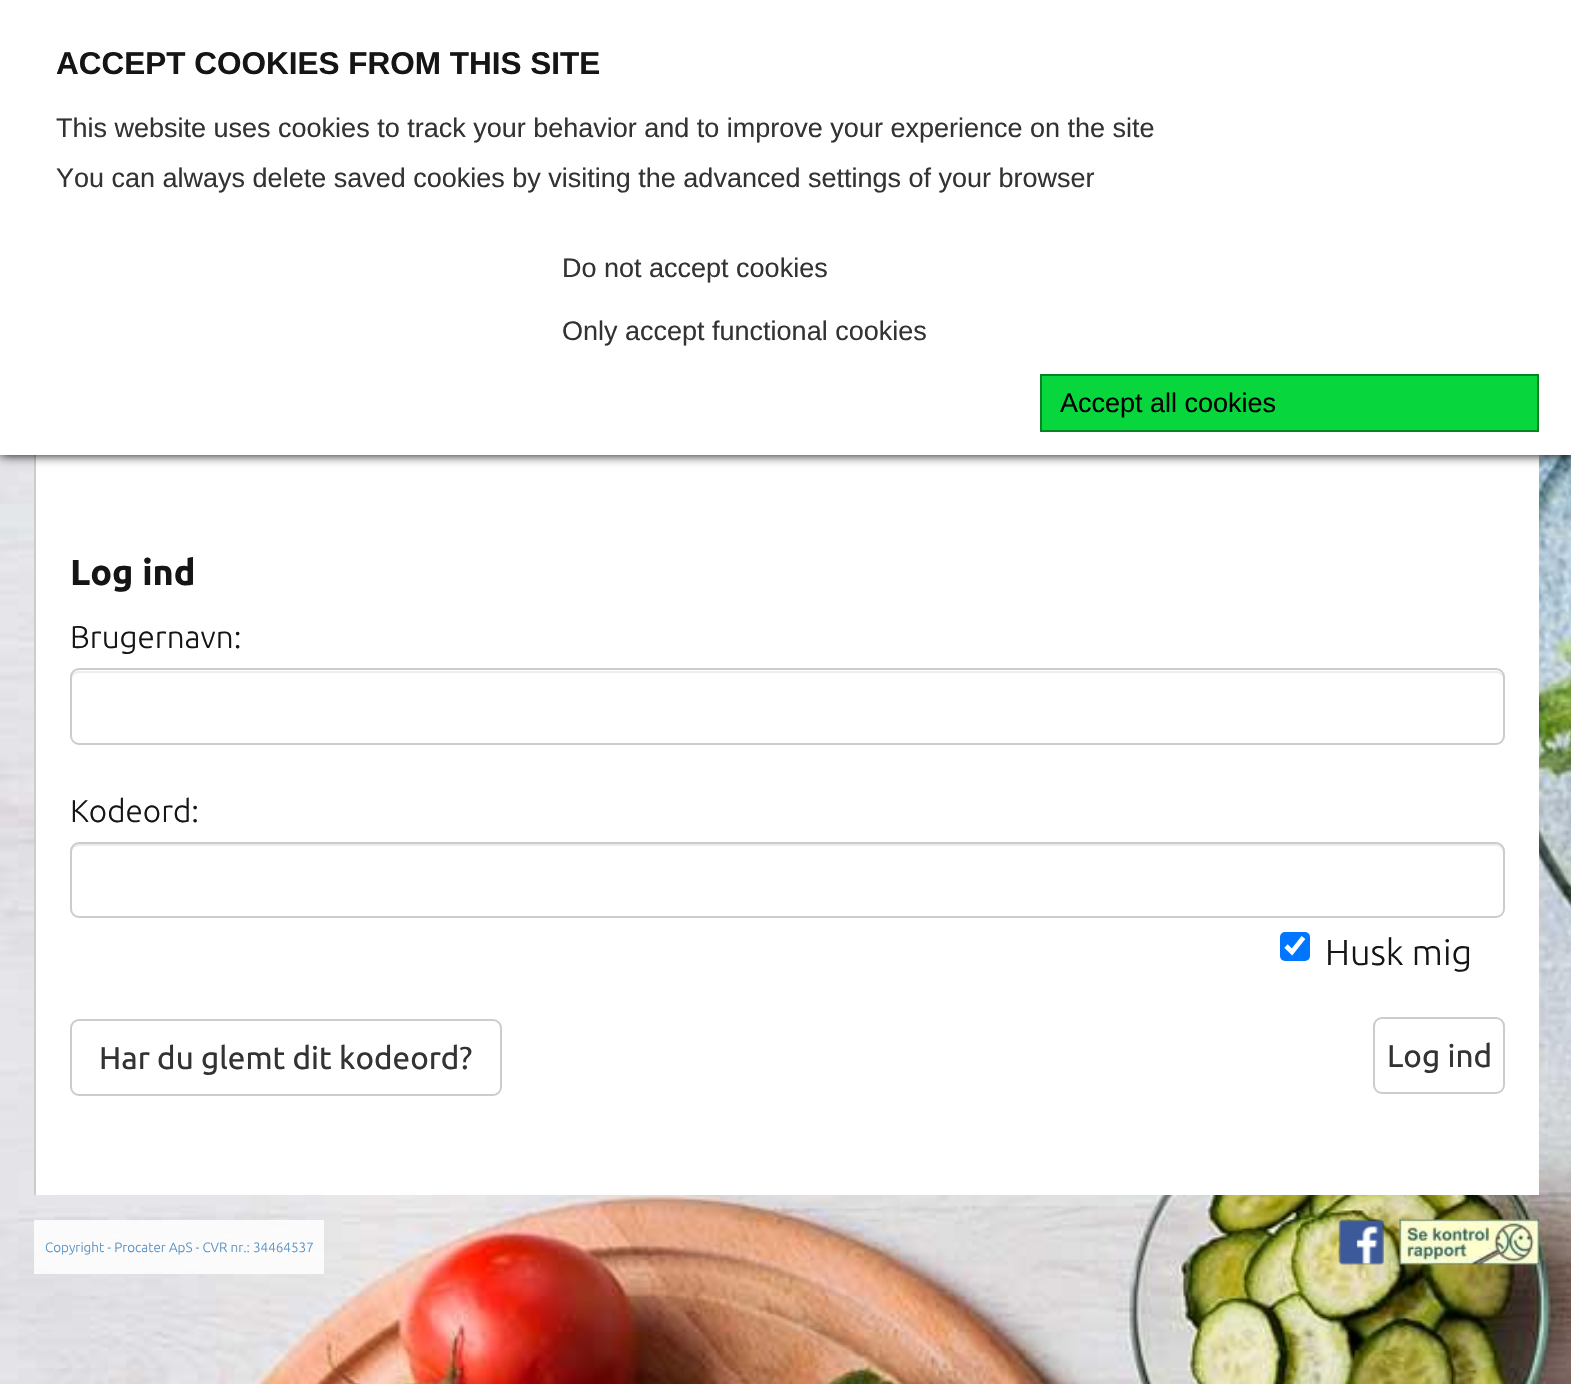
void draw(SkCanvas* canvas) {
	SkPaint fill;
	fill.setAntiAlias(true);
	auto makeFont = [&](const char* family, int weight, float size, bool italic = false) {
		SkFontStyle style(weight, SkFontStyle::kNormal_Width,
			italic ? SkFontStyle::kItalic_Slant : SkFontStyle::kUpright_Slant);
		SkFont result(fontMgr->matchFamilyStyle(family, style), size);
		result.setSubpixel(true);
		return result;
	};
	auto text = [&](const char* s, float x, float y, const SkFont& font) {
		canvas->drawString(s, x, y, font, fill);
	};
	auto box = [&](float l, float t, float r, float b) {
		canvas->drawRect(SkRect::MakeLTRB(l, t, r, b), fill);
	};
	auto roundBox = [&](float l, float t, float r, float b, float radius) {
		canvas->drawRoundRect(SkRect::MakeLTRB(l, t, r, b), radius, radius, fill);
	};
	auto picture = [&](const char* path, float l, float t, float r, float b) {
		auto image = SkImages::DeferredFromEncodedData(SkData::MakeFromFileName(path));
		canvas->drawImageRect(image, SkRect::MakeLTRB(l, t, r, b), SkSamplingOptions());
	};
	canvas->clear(0xFFFFFFFF);
	picture("image0.png", 0, 455, 1571, 1384);
	fill.setColor(0xFFFFFFFF);
	box(36, 455, 1539, 1195);
	fill.setColor(0xFFCCCCCC);
	box(34, 455, 36, 1195);
	fill.setColor(0xFF000000);
	fill.setMaskFilter(SkMaskFilter::MakeBlur(kNormal_SkBlurStyle, 5.5f));
	canvas->drawRect(SkRect::MakeLTRB(0, 0, 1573, 455), fill);
	fill.setMaskFilter(nullptr);
	fill.setColor(0xFFFFFFFF);
	box(0, 0, 1571, 455);
	fill.setColor(0xFF07D63C);
	canvas->drawRect(SkRect::MakeLTRB(1041, 375, 1538, 431), fill);
	fill.setStyle(SkPaint::kStroke_Style);
	fill.setStrokeWidth(2);
	fill.setColor(0xFF048425);
	canvas->drawRect(SkRect::MakeLTRB(1041, 375, 1538, 431), fill);
	fill.setStyle(SkPaint::kFill_Style);
	fill.setColor(0xFFECECEC);
	canvas->drawPath(SkPathBuilder().moveTo(79, 673).lineTo(1496, 673).cubicTo(1500, 673, 1503, 676, 1503, 680).lineTo(1503, 678).cubicTo(1503, 674, 1500, 671, 1496, 671).lineTo(79, 671).cubicTo(75, 671, 72, 674, 72, 678).lineTo(72, 680).cubicTo(72, 676, 75, 673, 79, 673).close().detach(), fill);
	fill.setStyle(SkPaint::kStroke_Style);
	fill.setColor(0xFFCCCCCC);
	canvas->drawRoundRect(SkRect::MakeLTRB(71, 669, 1504, 744), 8, 8, fill);
	fill.setStyle(SkPaint::kFill_Style);
	fill.setColor(0xFFECECEC);
	canvas->drawPath(SkPathBuilder().moveTo(79, 846).lineTo(1496, 846).cubicTo(1500, 846, 1503, 849, 1503, 853).lineTo(1503, 851).cubicTo(1503, 847, 1500, 844, 1496, 844).lineTo(79, 844).cubicTo(75, 844, 72, 847, 72, 851).lineTo(72, 853).cubicTo(72, 849, 75, 846, 79, 846).close().detach(), fill);
	fill.setStyle(SkPaint::kStroke_Style);
	fill.setColor(0xFFCCCCCC);
	canvas->drawRoundRect(SkRect::MakeLTRB(71, 843, 1504, 917), 8, 8, fill);
	fill.setStyle(SkPaint::kFill_Style);
	fill.setColor(0xFF0075FF);
	roundBox(1280, 932, 1310, 961, 5);
	fill.setStyle(SkPaint::kStroke_Style);
	fill.setStrokeWidth(4.7f);
	fill.setColor(0xFFFFFFFF);
	canvas->drawPath(SkPathBuilder().moveTo(1286, 946).lineTo(1292, 952).lineTo(1303.5f, 937.5f).detach(), fill);
	fill.setStrokeWidth(2);
	fill.setColor(0xFFCCCCCC);
	canvas->drawRoundRect(SkRect::MakeLTRB(71, 1020, 501, 1095), 8, 8, fill);
	canvas->drawRoundRect(SkRect::MakeLTRB(1374, 1018, 1504, 1093), 8, 8, fill);
	fill.setStyle(SkPaint::kFill_Style);
	fill.setColor(0xD9FFFFFF);
	box(34, 1220, 324, 1274);
	picture("image1.png", 1338, 1219, 1384, 1265);
	picture("image2.png", 1399, 1219, 1539, 1265);
	auto font1 = makeFont("Liberation Sans", 700, 31.5f);
	fill.setColor(0xFF151515);
	text("ACCEPT COOKIES FROM THIS SITE", 56, 74, font1);
	auto font2 = makeFont("Liberation Sans", 400, 27);
	fill.setColor(0xFF333333);
	text("This website uses cookies to track your behavior and to improve your experience on the site", 56, 137, font2);
	text("You can always delete saved cookies by visiting the advanced settings of your browser", 56, 187, font2);
	text("Do not accept cookies", 562, 277, font2);
	text("Only accept functional cookies", 562, 340, font2);
	fill.setColor(0xFF000000);
	text("Accept all cookies", 1060, 412, font2);
	auto font3 = makeFont("Ubuntu", 700, 36);
	fill.setColor(0xFF151515);
	text("Log ind", 70, 585, font3);
	auto font4 = makeFont("Ubuntu", 300, 31.5f);
	text("Brugernavn:", 70, 648, font4);
	text("Kodeord:", 70, 822, font4);
	auto font5 = makeFont("Ubuntu", 300, 36);
	text("Husk mig", 1325, 965, font5);
	auto font6 = makeFont("Ubuntu", 400, 31.5f);
	fill.setColor(0xFF333333);
	text("Har du glemt dit kodeord?", 99, 1069, font6);
	text("Log ind", 1387, 1067, font6);
	auto font7 = makeFont("Ubuntu", 300, 13.5f);
	fill.setColor(0xFF5791C7);
	text("Copyright - Procater ApS - CVR nr.: 34464537", 45, 1252, font7);
}
